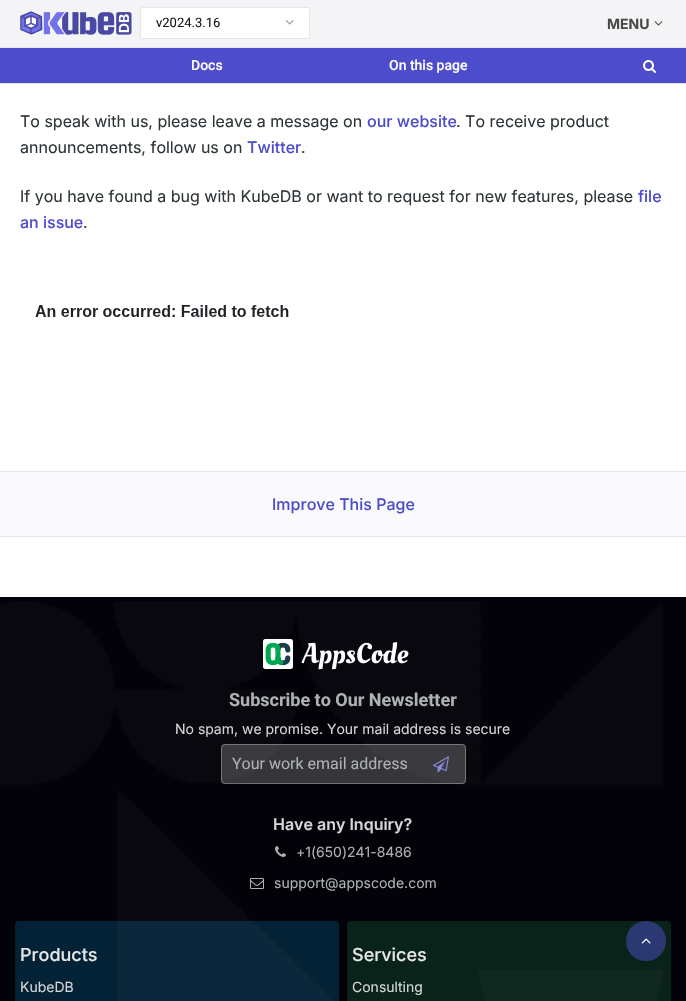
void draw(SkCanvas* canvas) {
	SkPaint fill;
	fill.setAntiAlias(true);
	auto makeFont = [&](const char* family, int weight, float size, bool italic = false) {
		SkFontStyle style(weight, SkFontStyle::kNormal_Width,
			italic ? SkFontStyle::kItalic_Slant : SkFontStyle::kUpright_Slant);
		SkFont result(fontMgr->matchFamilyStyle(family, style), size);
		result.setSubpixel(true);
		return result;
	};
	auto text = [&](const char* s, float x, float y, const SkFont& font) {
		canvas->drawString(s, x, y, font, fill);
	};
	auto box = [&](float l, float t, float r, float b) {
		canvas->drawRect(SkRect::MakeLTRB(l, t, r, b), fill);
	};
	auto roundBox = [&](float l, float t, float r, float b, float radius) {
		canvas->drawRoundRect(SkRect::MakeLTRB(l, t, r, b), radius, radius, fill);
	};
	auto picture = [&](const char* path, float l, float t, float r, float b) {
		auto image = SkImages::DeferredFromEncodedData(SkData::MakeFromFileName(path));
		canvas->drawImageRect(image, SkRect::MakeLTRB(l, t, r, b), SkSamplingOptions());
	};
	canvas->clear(0xFFFFFFFF);
	fill.setColor(0xFFF4F4F6);
	box(0, 0, 686, 47);
	fill.setColor(0xFFE3E7E8);
	box(0, 83, 686, 84);
	box(0, 47, 686, 48);
	picture("image0.png", 20, 11, 132, 35);
	fill.setColor(0xFFFFFFFF);
	canvas->drawRoundRect(SkRect::MakeLTRB(140.5f, 7.5f, 309.5f, 38.5f), 1.5f, 1.5f, fill);
	fill.setStyle(SkPaint::kStroke_Style);
	fill.setStrokeWidth(1);
	fill.setColor(0xFFE3E7E8);
	canvas->drawRoundRect(SkRect::MakeLTRB(140.5f, 7.5f, 309.5f, 38.5f), 1.5f, 1.5f, fill);
	picture("image1.png", 285, 20, 294, 25);
	picture("image2.png", 654, 21, 663, 26);
	fill.setStyle(SkPaint::kFill_Style);
	fill.setColor(0xFF4D4DCB);
	box(0, 48, 686, 83);
	picture("image3.png", 643, 60, 656, 73);
	picture("image4.png", 35, 305, 289, 317);
	fill.setColor(0xFFFAFAFD);
	box(0, 472, 686, 536);
	fill.setColor(0xFFE3E7E8);
	box(0, 471, 686, 472);
	box(0, 536, 686, 537);
	fill.setColor(0xFF020208);
	box(0, 597, 686, 1001);
	picture("image5.png", 0, 601, 663, 1001);
	picture("image6.png", 263, 639, 409, 670);
	fill.setColor(0x33FFFFFF);
	roundBox(221, 744, 466, 784, 4);
	fill.setStyle(SkPaint::kStroke_Style);
	fill.setColor(0x4DFFFFFF);
	canvas->drawRoundRect(SkRect::MakeLTRB(221.5f, 744.5f, 465.5f, 783.5f), 3.5f, 3.5f, fill);
	picture("image7.png", 433, 756, 449, 773);
	picture("image8.png", 275, 846, 286, 857);
	picture("image9.png", 250, 878, 264, 889);
	fill.setStyle(SkPaint::kFill_Style);
	fill.setColor(0x2E0AAFFF);
	roundBox(15, 921, 339, 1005, 4);
	fill.setColor(0x3027B064);
	roundBox(347, 921, 671, 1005, 4);
	fill.setColor(0xFF2B3872);
	canvas->drawCircle(646, 941, 20, fill);
	picture("image10.png", 641, 938, 651, 944);
	auto font1 = makeFont("Roboto", 400, 13);
	fill.setColor(0xFF171B1C);
	text("v2024.3.16", 156, 27, font1);
	auto font2 = makeFont("Inter", 700, 14);
	fill.setColor(0xFF4A4A4A);
	text("MENU", 607, 29, font2);
	auto font3 = makeFont("Roboto", 500, 14);
	fill.setColor(0xFFFFFFFF);
	text("Docs", 191, 70, font3);
	text("On this page", 389, 70, font3);
	auto font4 = makeFont("Inter", 400, 16);
	fill.setColor(0xFF2E3538);
	text("To speak with us, please leave a message on", 20, 127, font4);
	auto font5 = makeFont("Inter", 500, 16);
	fill.setColor(0xFF4D4DCB);
	text("our website", 367, 127, font5);
	fill.setColor(0xFF2E3538);
	text(". To receive product", 456, 127, font4);
	text("announcements, follow us on", 20, 153, font4);
	fill.setColor(0xFF4D4DCB);
	text("Twitter", 247, 153, font5);
	fill.setColor(0xFF2E3538);
	text(".", 301, 153, font4);
	text("If you have found a bug with KubeDB or want to request for new features, please", 20, 202, font4);
	fill.setColor(0xFF4D4DCB);
	text("file", 638, 202, font5);
	text("an issue", 20, 228, font5);
	fill.setColor(0xFF2E3538);
	text(".", 83, 228, font4);
	fill.setColor(0xFF4D4DCB);
	text("Improve This Page", 272, 510, font5);
	auto font6 = makeFont("Roboto", 700, 18);
	fill.setColor(0xFFADB2B0);
	text("Subscribe to Our Newsletter", 229, 706, font6);
	auto font7 = makeFont("Inter", 400, 14);
	fill.setColor(0xFFD4D6D5);
	text("No spam, we promise. Your mail address is secure", 175, 734, font7);
	auto font8 = makeFont("Roboto", 400, 16);
	fill.setColor(0xFFADB2B0);
	text("Your work email address", 232, 769, font8);
	auto font9 = makeFont("Inter", 600, 16);
	fill.setColor(0xFFD4D6D5);
	text("Have any Inquiry?", 273, 830, font9);
	fill.setColor(0xFFADB2B0);
	text("+1(650)241-8486", 296, 857, font7);
	text("support@appscode.com", 274, 888, font7);
	auto font10 = makeFont("Inter", 500, 18);
	fill.setColor(0xFFE6E7E6);
	text("Products", 20, 961, font10);
	fill.setColor(0xFFD4D6D5);
	text("KubeDB", 20, 992, font7);
	fill.setColor(0xFFE6E7E6);
	text("Services", 352, 961, font10);
	fill.setColor(0xFFD4D6D5);
	text("Consulting", 352, 992, font7);
}
